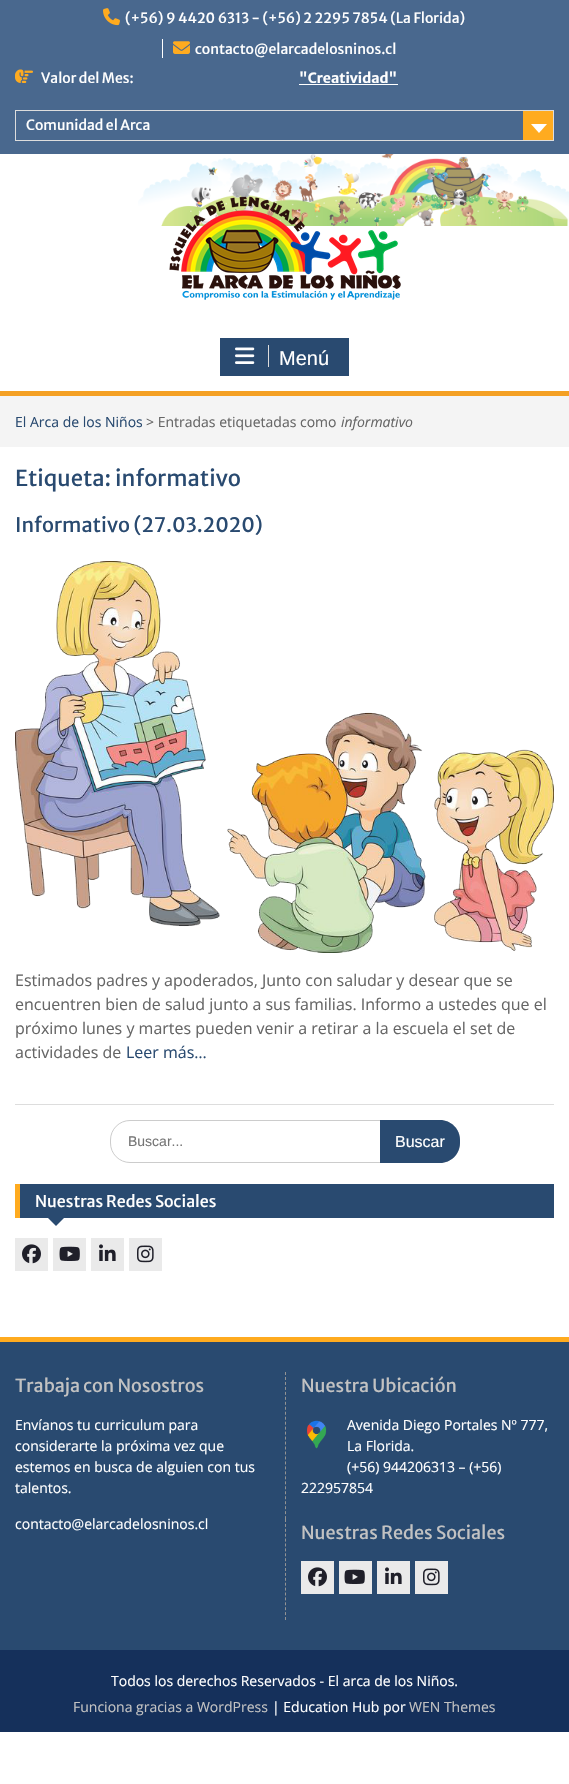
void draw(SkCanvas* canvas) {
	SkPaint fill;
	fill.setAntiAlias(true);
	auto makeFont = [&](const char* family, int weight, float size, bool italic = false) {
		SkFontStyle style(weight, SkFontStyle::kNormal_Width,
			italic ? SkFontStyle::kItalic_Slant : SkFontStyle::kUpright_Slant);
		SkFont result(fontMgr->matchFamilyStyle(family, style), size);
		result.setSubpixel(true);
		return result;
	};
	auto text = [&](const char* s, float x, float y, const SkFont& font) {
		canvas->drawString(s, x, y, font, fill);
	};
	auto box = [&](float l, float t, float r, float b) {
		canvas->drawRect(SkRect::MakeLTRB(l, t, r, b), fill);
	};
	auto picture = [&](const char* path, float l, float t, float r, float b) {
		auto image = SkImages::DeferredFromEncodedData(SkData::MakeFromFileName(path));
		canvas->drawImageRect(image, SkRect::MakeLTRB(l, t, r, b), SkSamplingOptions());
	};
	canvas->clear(0xFFFFFFFF);
	fill.setColor(0xFF49688E);
	box(0, 0, 569, 154);
	picture("image0.png", 103, 8, 120, 26);
	fill.setColor(0xFFFFFFFF);
	box(162, 39, 163, 58);
	picture("image1.png", 173, 41, 190, 54);
	picture("image2.png", 15, 69, 33, 83);
	box(299, 84, 398, 85);
	fill.setStyle(SkPaint::kStroke_Style);
	fill.setStrokeWidth(1);
	fill.setColor(0xFFDDDDDD);
	canvas->drawRect(SkRect::MakeLTRB(15.5f, 110.5f, 553.5f, 140.5f), fill);
	fill.setStyle(SkPaint::kFill_Style);
	fill.setColor(0xFFFFAB1F);
	box(523, 111, 553, 140);
	fill.setColor(0xFFFFFFFF);
	canvas->drawPath(SkPathBuilder().moveTo(531, 124).lineTo(547, 124).lineTo(539, 133).close().detach(), fill);
	picture("image3.png", 138, 154, 569, 226);
	picture("image4.png", 169, 196, 401, 300);
	fill.setColor(0xFFF4A024);
	box(0, 391, 569, 396);
	fill.setColor(0xFF294A70);
	box(220, 338, 349, 376);
	fill.setColor(0xFFDDDDDD);
	box(268, 345, 269, 367);
	picture("image5.png", 235, 347, 255, 364);
	fill.setColor(0xFFF4F4F4);
	box(0, 396, 569, 447);
	fill.setColor(0xFFDDDDDD);
	box(15, 1104, 554, 1105);
	picture("image6.png", 15, 561, 554, 953);
	fill.setStyle(SkPaint::kStroke_Style);
	fill.setColor(0xFFCCCCCC);
	canvas->drawRoundRect(SkRect::MakeLTRB(110.5f, 1120.5f, 459.5f, 1162.5f), 19.5f, 19.5f, fill);
	fill.setStyle(SkPaint::kFill_Style);
	fill.setColor(0xFF294A70);
	canvas->drawPath(SkPathBuilder().moveTo(380, 1120).lineTo(440, 1120).cubicTo(451, 1120, 460, 1129, 460, 1140).lineTo(460, 1143).cubicTo(460, 1154, 451, 1163, 440, 1163).lineTo(380, 1163).close().detach(), fill);
	box(20, 1184, 554, 1218);
	fill.setColor(0xFFFFAB1F);
	box(15, 1184, 20, 1218);
	fill.setColor(0xFF294A70);
	canvas->drawPath(SkPathBuilder().moveTo(47, 1217).lineTo(65, 1217).lineTo(56, 1226).close().detach(), fill);
	fill.setColor(0xFFEAEAEA);
	box(15, 1238, 48, 1271);
	picture("image7.png", 22, 1244, 41, 1264);
	box(53, 1238, 86, 1271);
	picture("image8.png", 59, 1246, 80, 1261);
	box(91, 1238, 124, 1271);
	picture("image9.png", 99, 1244, 116, 1261);
	box(129, 1238, 162, 1271);
	picture("image10.png", 137, 1245, 154, 1263);
	fill.setColor(0xFF294A70);
	box(0, 1342, 569, 1650);
	fill.setColor(0xFFFFAB1F);
	box(0, 1337, 569, 1342);
	fill.setStyle(SkPaint::kStroke_Style);
	fill.setColor(0xFF939393);
	fill.setPathEffect(SkDashPathEffect::Make({{3, 1.97f}}, 0));
	canvas->drawPath(SkPathBuilder().moveTo(285.5f, 1372).lineTo(285.5f, 1519).detach(), fill);
	fill.setPathEffect(nullptr);
	picture("image11.png", 307, 1420, 327, 1449);
	fill.setPathEffect(SkDashPathEffect::Make({{3, 1.9f}}, 0));
	canvas->drawPath(SkPathBuilder().moveTo(285.5f, 1519).lineTo(285.5f, 1620).detach(), fill);
	fill.setPathEffect(nullptr);
	fill.setStyle(SkPaint::kFill_Style);
	fill.setColor(0xFFEAEAEA);
	box(301, 1561, 334, 1594);
	picture("image7.png", 308, 1567, 327, 1587);
	box(339, 1561, 372, 1594);
	picture("image8.png", 344, 1569, 365, 1584);
	box(377, 1561, 410, 1594);
	picture("image9.png", 385, 1567, 402, 1584);
	box(415, 1561, 448, 1594);
	picture("image10.png", 423, 1568, 440, 1586);
	fill.setColor(0xFF15305B);
	box(0, 1650, 569, 1732);
	auto font1 = makeFont("Merriweather Sans", 400, 14);
	fill.setColor(0xFFFFFFFF);
	text("(+56) 9 4420 6313 - (+56) 2 2295 7854 (La Florida)", 125, 23, font1);
	text("contacto@elarcadelosninos.cl", 195, 54, font1);
	text("Valor del Mes:", 41, 83, font1);
	auto font2 = makeFont("Merriweather Sans", 700, 14);
	text("\"Creatividad\"", 299, 83, font2);
	text("Comunidad el Arca", 26, 130, font1);
	auto font3 = makeFont("Liberation Sans", 400, 20);
	text("Menú", 279, 365, font3);
	auto font4 = makeFont("Open Sans", 400, 14);
	fill.setColor(0xFF294A70);
	text("El Arca de los Niños", 15, 427, font4);
	fill.setColor(0xFF666666);
	text("> Entradas etiquetadas como", 146, 427, font4);
	auto font5 = makeFont("Open Sans", 400, 14, true);
	text("informativo", 341, 427, font5);
	auto font6 = makeFont("Merriweather Sans", 400, 22);
	fill.setColor(0xFF294A70);
	text("Etiqueta: informativo", 15, 486, font6);
	auto font7 = makeFont("Merriweather Sans", 400, 20);
	text("Informativo (27.03.2020)", 15, 532, font7);
	auto font8 = makeFont("Open Sans", 400, 16);
	fill.setColor(0xFF666666);
	text("Estimados padres y apoderados, Junto con saludar y desear que se", 15, 986, font8);
	text("encuentren bien de salud junto a sus familias. Informo a ustedes que el", 15, 1010, font8);
	text("próximo lunes y martes pueden venir a retirar a la escuela el set de", 15, 1034, font8);
	text("actividades de", 15, 1058, font8);
	fill.setColor(0xFF294A70);
	text("Leer más…", 126, 1058, font8);
	auto font9 = makeFont("Liberation Sans", 400, 14);
	fill.setColor(0xFF757575);
	text("Buscar...", 128, 1146, font9);
	auto font10 = makeFont("Liberation Sans", 400, 16);
	fill.setColor(0xFFFFFFFF);
	text("Buscar", 395, 1147, font10);
	auto font11 = makeFont("Merriweather Sans", 400, 16);
	text("Nuestras Redes Sociales", 35, 1207, font11);
	auto font12 = makeFont("Merriweather Sans", 400, 18);
	fill.setColor(0xFFC2C2C2);
	text("Trabaja con Nosostros", 15, 1392, font12);
	fill.setColor(0xFFFFFFFF);
	text("Envíanos tu curriculum para", 15, 1430, font4);
	text("considerarte la próxima vez que", 15, 1451, font4);
	text("estemos en busca de alguien con tus", 15, 1472, font4);
	text("talentos.", 15, 1493, font4);
	text("contacto@elarcadelosninos.cl", 15, 1529, font4);
	fill.setColor(0xFFC2C2C2);
	text("Nuestra Ubicación", 301, 1392, font12);
	fill.setColor(0xFFFFFFFF);
	text("Avenida Diego Portales Nº 777,", 347, 1430, font4);
	text("La Florida.", 347, 1451, font4);
	text("(+56) 944206313 – (+56)", 347, 1472, font4);
	text("222957854", 301, 1493, font4);
	fill.setColor(0xFFC2C2C2);
	text("Nuestras Redes Sociales", 301, 1539, font12);
	fill.setColor(0xFFFFFFFF);
	text("Todos los derechos Reservados - El arca de los Niños.", 111, 1686, font4);
	fill.setColor(0xFFC2C2C2);
	text("Funciona gracias a WordPress", 73, 1712, font4);
	fill.setColor(0xFFFFFFFF);
	text("| Education Hub por", 272, 1712, font4);
	fill.setColor(0xFFC2C2C2);
	text("WEN Themes", 409, 1712, font4);
}
